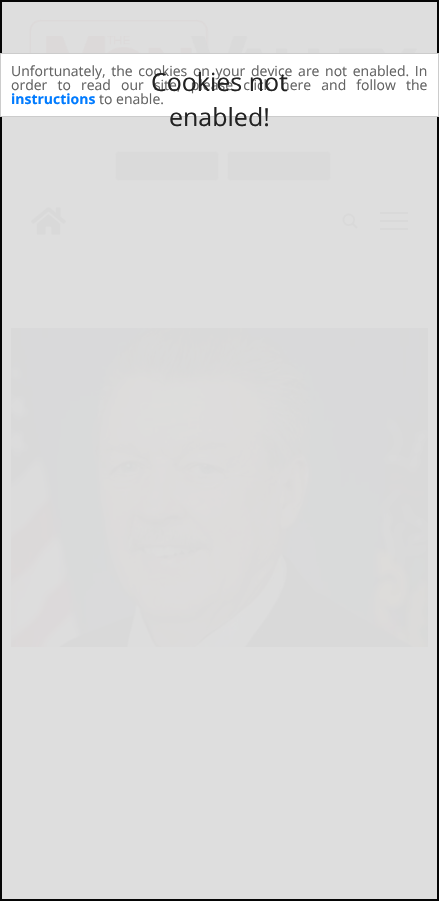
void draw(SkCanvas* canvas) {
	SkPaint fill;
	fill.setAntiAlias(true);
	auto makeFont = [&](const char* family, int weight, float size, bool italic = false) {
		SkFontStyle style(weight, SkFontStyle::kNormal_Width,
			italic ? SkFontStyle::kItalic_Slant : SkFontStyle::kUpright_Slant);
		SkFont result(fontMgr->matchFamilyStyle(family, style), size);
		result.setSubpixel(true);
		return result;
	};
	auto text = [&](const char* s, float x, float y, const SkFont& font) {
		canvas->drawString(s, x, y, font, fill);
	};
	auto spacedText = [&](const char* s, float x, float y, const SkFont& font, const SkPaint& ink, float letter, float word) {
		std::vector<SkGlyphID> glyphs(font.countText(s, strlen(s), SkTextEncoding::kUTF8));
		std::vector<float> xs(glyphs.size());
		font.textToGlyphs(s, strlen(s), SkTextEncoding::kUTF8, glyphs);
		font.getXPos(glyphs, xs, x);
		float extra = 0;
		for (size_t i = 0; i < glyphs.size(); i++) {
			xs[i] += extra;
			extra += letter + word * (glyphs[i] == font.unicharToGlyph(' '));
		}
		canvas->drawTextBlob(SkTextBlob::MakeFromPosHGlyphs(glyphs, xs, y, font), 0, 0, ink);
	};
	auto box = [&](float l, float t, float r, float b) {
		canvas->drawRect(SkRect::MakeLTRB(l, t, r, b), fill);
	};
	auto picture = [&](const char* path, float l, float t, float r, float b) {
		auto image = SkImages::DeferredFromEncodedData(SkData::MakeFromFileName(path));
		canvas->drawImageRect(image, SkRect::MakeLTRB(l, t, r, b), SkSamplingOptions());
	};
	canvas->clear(0xFFDEDEDE);
	picture("image0.png", 29, 19, 417, 53);
	fill.setColor(0xFFDADADA);
	canvas->drawRoundRect(SkRect::MakeLTRB(115.5f, 151.5f, 218.5f, 180.5f), 3.5f, 3.5f, fill);
	fill.setStyle(SkPaint::kStroke_Style);
	fill.setStrokeWidth(1);
	fill.setColor(0xFFDDDDDD);
	canvas->drawRoundRect(SkRect::MakeLTRB(115.5f, 151.5f, 218.5f, 180.5f), 3.5f, 3.5f, fill);
	fill.setStyle(SkPaint::kFill_Style);
	fill.setColor(0xFFDADADA);
	canvas->drawRoundRect(SkRect::MakeLTRB(227.5f, 151.5f, 330.5f, 180.5f), 3.5f, 3.5f, fill);
	fill.setStyle(SkPaint::kStroke_Style);
	fill.setColor(0xFFDDDDDD);
	canvas->drawRoundRect(SkRect::MakeLTRB(227.5f, 151.5f, 330.5f, 180.5f), 3.5f, 3.5f, fill);
	picture("image1.png", 31, 207, 66, 235);
	picture("image2.png", 342, 213, 358, 229);
	fill.setStyle(SkPaint::kFill_Style);
	fill.setColor(0xFFD9D9D9);
	box(380, 220, 408, 222);
	box(380, 212, 408, 214);
	box(380, 228, 408, 230);
	picture("image3.png", 11, 328, 428, 647);
	fill.setStyle(SkPaint::kStroke_Style);
	fill.setStrokeWidth(2);
	fill.setColor(0xFA000000);
	canvas->drawRect(SkRect::MakeLTRB(1, 1, 438, 900), fill);
	fill.setStyle(SkPaint::kFill_Style);
	fill.setColor(0xFFFFFFFF);
	canvas->drawRect(SkRect::MakeLTRB(0.5f, 53.5f, 438.5f, 116.5f), fill);
	fill.setStyle(SkPaint::kStroke_Style);
	fill.setStrokeWidth(1);
	fill.setColor(0xFFCCCCCC);
	canvas->drawRect(SkRect::MakeLTRB(0.5f, 53.5f, 438.5f, 116.5f), fill);
	auto font1 = makeFont("Open Sans", 400, 14);
	fill.setStyle(SkPaint::kFill_Style);
	fill.setColor(0xFF636363);
	spacedText("Unfortunately, the cookies on your device are not enabled. In", 11, 76, font1, fill, 0, 2);
	spacedText("order to read our site, please click here and follow the", 11, 90, font1, fill, 0, 6.5f);
	auto font2 = makeFont("Open Sans", 700, 14);
	fill.setColor(0xFF007BFF);
	text("instructions", 11, 104, font2);
	fill.setColor(0xFF636363);
	text("to enable.", 99, 104, font1);
	auto font3 = makeFont("Open Sans", 400, 25);
	fill.setColor(0xFF222222);
	text("Cookies not", 151, 91, font3);
	text("enabled!", 169, 126, font3);
}
